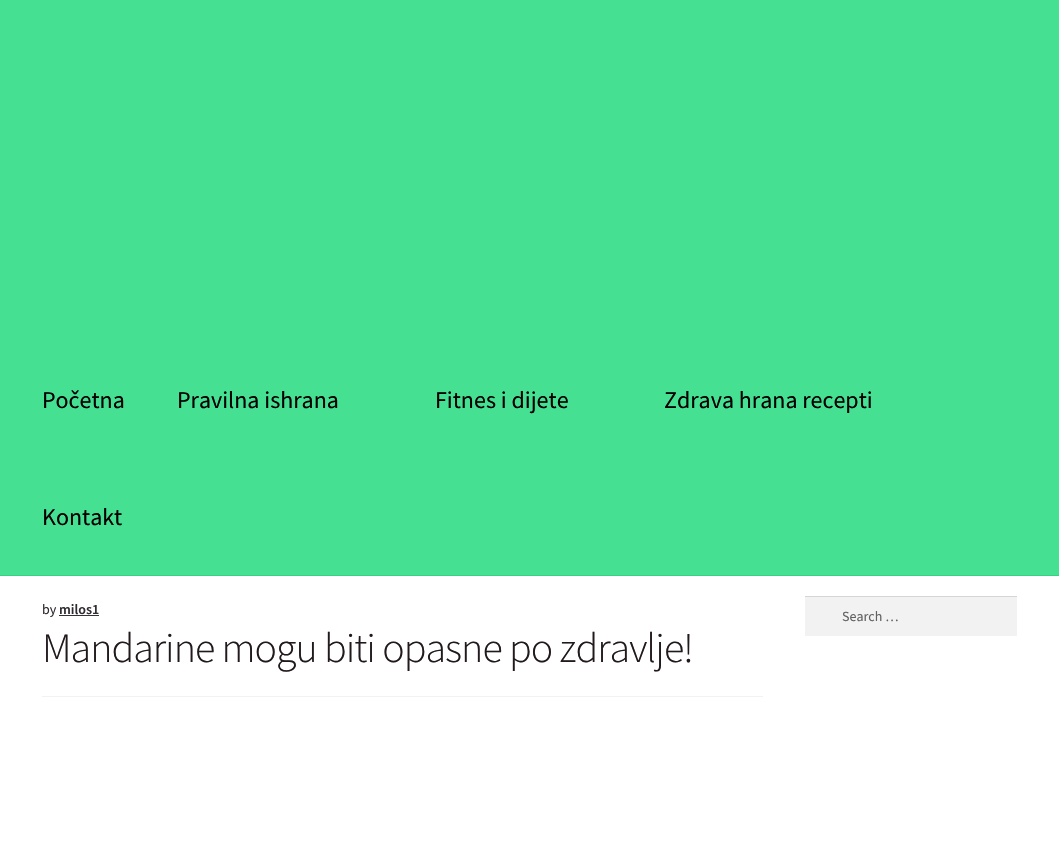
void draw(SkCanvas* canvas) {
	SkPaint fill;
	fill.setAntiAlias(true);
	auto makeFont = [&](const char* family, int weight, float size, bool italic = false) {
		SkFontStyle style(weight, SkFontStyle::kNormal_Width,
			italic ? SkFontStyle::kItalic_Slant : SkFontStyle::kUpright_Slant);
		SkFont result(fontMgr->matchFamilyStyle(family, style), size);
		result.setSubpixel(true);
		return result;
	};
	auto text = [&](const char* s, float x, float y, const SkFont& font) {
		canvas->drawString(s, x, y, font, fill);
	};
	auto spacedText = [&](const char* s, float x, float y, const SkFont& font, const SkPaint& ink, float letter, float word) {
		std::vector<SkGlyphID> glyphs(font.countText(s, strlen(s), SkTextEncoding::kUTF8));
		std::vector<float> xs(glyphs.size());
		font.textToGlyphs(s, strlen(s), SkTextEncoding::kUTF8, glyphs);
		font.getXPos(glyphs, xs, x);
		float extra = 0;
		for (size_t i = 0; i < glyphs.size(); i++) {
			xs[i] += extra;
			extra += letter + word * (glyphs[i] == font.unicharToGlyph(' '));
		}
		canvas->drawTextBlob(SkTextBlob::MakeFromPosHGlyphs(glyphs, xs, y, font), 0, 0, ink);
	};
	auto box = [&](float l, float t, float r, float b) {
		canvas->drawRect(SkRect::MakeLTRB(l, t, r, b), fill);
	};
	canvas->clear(0xFFFFFFFF);
	fill.setColor(0xFF45E092);
	box(0, 0, 1059, 575);
	fill.setColor(0xFF36D183);
	box(0, 575, 1059, 576);
	fill.setColor(0xFFF2F2F2);
	box(42, 696, 763, 697);
	fill.setColor(0xFF353035);
	box(59, 615, 99, 616);
	fill.setColor(0xFFF2F2F2);
	box(805, 597, 1017, 636);
	fill.setColor(0xFFD4D4D4);
	box(805, 596, 1017, 597);
	auto font1 = makeFont("Source Sans Pro", 400, 24);
	fill.setColor(0xFF000000);
	text("Početna", 42, 408, font1);
	text("Pravilna ishrana", 177, 408, font1);
	text("Fitnes i dijete", 435, 408, font1);
	text("Zdrava hrana recepti", 664, 408, font1);
	text("Kontakt", 42, 525, font1);
	auto font2 = makeFont("Source Sans Pro", 400, 14);
	fill.setColor(0xFF302B30);
	text("by", 42, 614, font2);
	auto font3 = makeFont("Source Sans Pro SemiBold", 600, 14);
	text("milos1", 59, 614, font3);
	auto font4 = makeFont("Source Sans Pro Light", 300, 41.9f);
	fill.setColor(0xFF21191D);
	spacedText("Mandarine mogu biti opasne po zdravlje!", 42, 662, font4, fill, -1, 0);
	fill.setColor(0xFF616161);
	text("Search …", 842, 621, font2);
}
